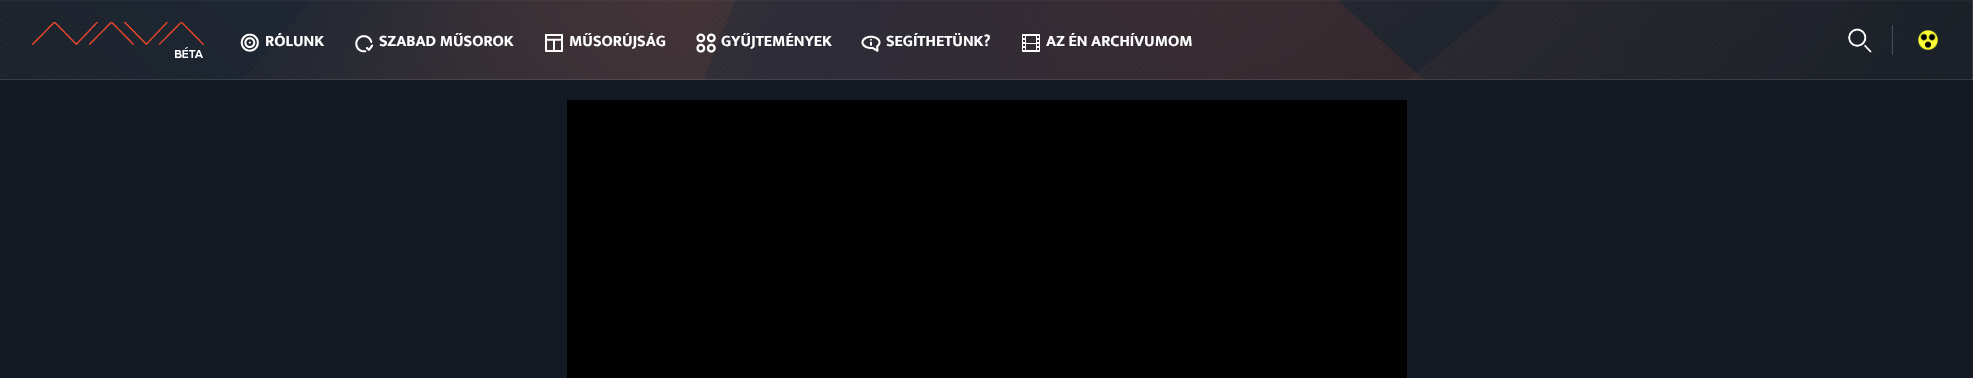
void draw(SkCanvas* canvas) {
	SkPaint fill;
	fill.setAntiAlias(true);
	auto makeFont = [&](const char* family, int weight, float size, bool italic = false) {
		SkFontStyle style(weight, SkFontStyle::kNormal_Width,
			italic ? SkFontStyle::kItalic_Slant : SkFontStyle::kUpright_Slant);
		SkFont result(fontMgr->matchFamilyStyle(family, style), size);
		result.setSubpixel(true);
		return result;
	};
	auto text = [&](const char* s, float x, float y, const SkFont& font) {
		canvas->drawString(s, x, y, font, fill);
	};
	auto box = [&](float l, float t, float r, float b) {
		canvas->drawRect(SkRect::MakeLTRB(l, t, r, b), fill);
	};
	auto picture = [&](const char* path, float l, float t, float r, float b) {
		auto image = SkImages::DeferredFromEncodedData(SkData::MakeFromFileName(path));
		canvas->drawImageRect(image, SkRect::MakeLTRB(l, t, r, b), SkSamplingOptions());
	};
	canvas->clear(0xFFFFFFFF);
	picture("image0.png", 0, 0, 1973, 80);
	picture("image1.png", 32, 22, 204, 58);
	picture("image2.png", 240, 33, 259, 52);
	picture("image3.png", 355, 35, 374, 53);
	picture("image4.png", 545, 34, 563, 52);
	picture("image5.png", 696, 33, 716, 53);
	picture("image6.png", 861, 35, 881, 52);
	picture("image7.png", 1022, 34, 1040, 52);
	fill.setColor(0xFF4A4E54);
	box(1892, 25, 1893, 55);
	picture("image8.png", 1848, 28, 1872, 53);
	picture("image9.png", 1918, 30, 1938, 50);
	fill.setColor(0xFF131A23);
	box(0, 80, 1973, 378);
	fill.setColor(0xFF000000);
	box(567, 100, 1407, 378);
	auto font1 = makeFont("Ek Mukta", 700, 16);
	fill.setColor(0xFFFFFFFF);
	text("RÓLUNK", 265, 46, font1);
	text("SZABAD MŰSOROK", 379, 46, font1);
	text("MŰSORÚJSÁG", 569, 46, font1);
	text("GYŰJTEMÉNYEK", 721, 46, font1);
	text("SEGÍTHETÜNK?", 886, 46, font1);
	text("AZ ÉN ARCHÍVUMOM", 1046, 46, font1);
}
